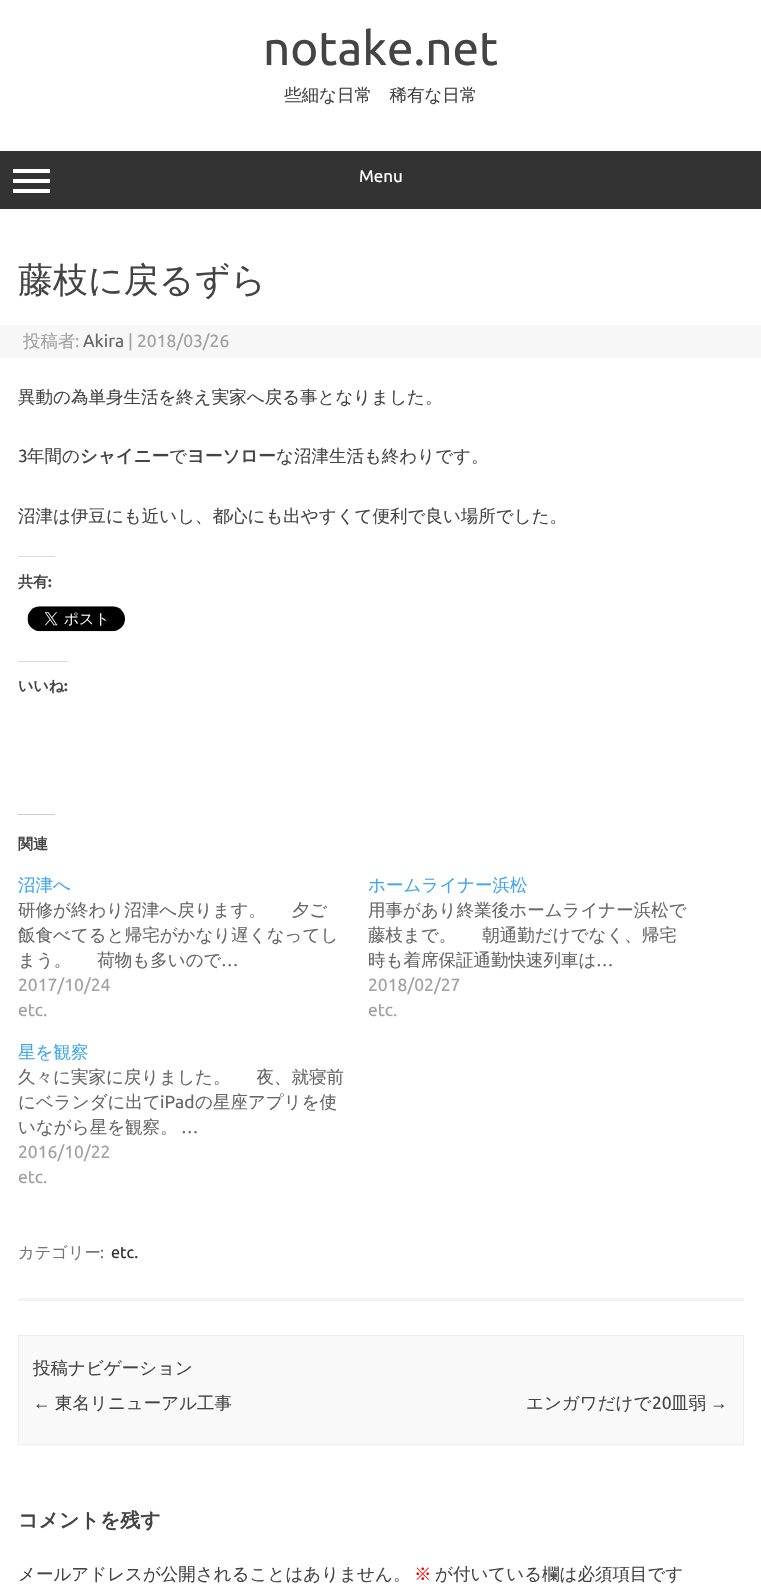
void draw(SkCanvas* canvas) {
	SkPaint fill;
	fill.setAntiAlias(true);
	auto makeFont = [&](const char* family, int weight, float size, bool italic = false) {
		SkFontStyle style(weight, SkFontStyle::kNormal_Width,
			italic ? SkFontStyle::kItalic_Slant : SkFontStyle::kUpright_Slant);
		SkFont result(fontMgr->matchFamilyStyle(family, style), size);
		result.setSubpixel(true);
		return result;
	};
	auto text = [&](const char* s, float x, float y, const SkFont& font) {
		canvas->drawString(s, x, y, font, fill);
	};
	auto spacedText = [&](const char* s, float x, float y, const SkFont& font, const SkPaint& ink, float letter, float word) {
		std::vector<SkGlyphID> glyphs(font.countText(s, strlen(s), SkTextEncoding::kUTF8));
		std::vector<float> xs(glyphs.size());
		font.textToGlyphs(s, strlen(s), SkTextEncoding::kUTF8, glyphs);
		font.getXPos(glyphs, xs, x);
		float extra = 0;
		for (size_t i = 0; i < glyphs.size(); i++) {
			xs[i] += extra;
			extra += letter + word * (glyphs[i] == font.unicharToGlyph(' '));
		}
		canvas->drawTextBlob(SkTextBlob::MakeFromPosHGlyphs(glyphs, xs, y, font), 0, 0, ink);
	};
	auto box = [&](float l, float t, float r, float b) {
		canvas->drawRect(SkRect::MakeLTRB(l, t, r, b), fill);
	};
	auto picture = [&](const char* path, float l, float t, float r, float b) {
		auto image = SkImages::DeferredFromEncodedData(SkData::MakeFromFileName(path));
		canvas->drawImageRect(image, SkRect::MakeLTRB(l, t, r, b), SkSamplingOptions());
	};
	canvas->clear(0xFFFFFFFF);
	fill.setColor(0xFF333333);
	box(0, 151, 761, 209);
	fill.setColor(0xFFFFFFFF);
	box(13, 169, 50, 173);
	box(13, 179, 50, 183);
	box(13, 189, 50, 193);
	fill.setColor(0xFFF3F3F3);
	box(18, 1298, 744, 1301);
	fill.setColor(0xFFF7F7F7);
	box(0, 325, 761, 358);
	fill.setColor(0xFFDCDCDE);
	box(18, 556, 55, 557);
	picture("image0.png", 27, 606, 125, 632);
	box(18, 661, 68, 662);
	fill.setColor(0xFFCCCCCC);
	box(18, 814, 55, 815);
	fill.setColor(0xFFF9F9F9);
	canvas->drawRect(SkRect::MakeLTRB(18.5f, 1335.5f, 743.5f, 1444.5f), fill);
	fill.setStyle(SkPaint::kStroke_Style);
	fill.setStrokeWidth(1);
	fill.setColor(0xFFEDEDED);
	canvas->drawRect(SkRect::MakeLTRB(18.5f, 1335.5f, 743.5f, 1444.5f), fill);
	auto font1 = makeFont("Ubuntu", 400, 47.5f);
	fill.setStyle(SkPaint::kFill_Style);
	fill.setColor(0xFF444444);
	text("notake.net", 263, 65, font1);
	auto font2 = makeFont("WenQuanYi Zen Hei", 500, 17.5f);
	text("些細な日常　稀有な日常", 284, 101, font2);
	auto font3 = makeFont("Ubuntu", 400, 17);
	fill.setColor(0xFFFFFFFF);
	text("Menu", 359, 182, font3);
	auto font4 = makeFont("WenQuanYi Zen Hei", 500, 35);
	fill.setColor(0xFF444444);
	text("藤枝に戻るずら", 18, 292, font4);
	fill.setColor(0xFFA2A2A2);
	text("投稿者", 23, 347, font2);
	auto font5 = makeFont("Ubuntu", 400, 17.5f);
	text(":", 75, 347, font5);
	fill.setColor(0xFF666666);
	text("Akira", 83, 347, font5);
	fill.setColor(0xFFA2A2A2);
	text("| 2018/03/26", 128, 347, font5);
	fill.setColor(0xFF444444);
	text("異動の為単身生活を終え実家へ戻る事となりました。", 18, 403, font2);
	text("3", 18, 462, font5);
	text("年間の", 27, 462, font2);
	auto font6 = makeFont("WenQuanYi Zen Hei", 700, 17.5f);
	text("シャイニー", 80, 462, font6);
	text("で", 169, 462, font2);
	text("ヨーソロー", 187, 462, font6);
	text("な沼津生活も終わりです。", 276, 462, font2);
	text("沼津は伊豆にも近いし、都心にも出やすくて便利で良い場所でした。", 18, 522, font2);
	auto font7 = makeFont("WenQuanYi Zen Hei", 700, 15);
	text("共有", 18, 587, font7);
	auto font8 = makeFont("Ubuntu", 700, 15);
	text(":", 48, 587, font8);
	text("いいね", 18, 691, font7);
	text(":", 64, 691, font8);
	text("関連", 18, 849, font7);
	fill.setColor(0xFF3CA7EE);
	text("沼津へ", 18, 891, font2);
	fill.setColor(0xFF666666);
	spacedText("研修が終わり沼津へ戻ります。 　 夕ご", 18, 916, font2, fill, 0, -1);
	text("飯食べてると帰宅がかなり遅くなってし", 18, 941, font2);
	spacedText("まう。 　 荷物も多いので", 18, 966, font2, fill, 0, -1);
	text("…", 221, 966, font5);
	fill.setColor(0xFFA2A2A2);
	text("2017/10/24", 18, 991, font5);
	text("etc.", 18, 1016, font5);
	fill.setColor(0xFF3CA7EE);
	text("ホームライナー浜松", 368, 891, font2);
	fill.setColor(0xFF666666);
	text("用事があり終業後ホームライナー浜松で", 368, 916, font2);
	spacedText("藤枝まで。 　 朝通勤だけでなく、帰宅", 368, 941, font2, fill, 0, -1);
	text("時も着席保証通勤快速列車は", 368, 966, font2);
	text("…", 596, 966, font5);
	fill.setColor(0xFFA2A2A2);
	text("2018/02/27", 368, 991, font5);
	text("etc.", 368, 1016, font5);
	fill.setColor(0xFF3CA7EE);
	text("星を観察", 18, 1058, font2);
	fill.setColor(0xFF666666);
	spacedText("久々に実家に戻りました。 　 夜、就寝前", 18, 1083, font2, fill, 0, -1);
	text("にベランダに出て", 18, 1108, font2);
	text("iPad", 160, 1108, font5);
	text("の星座アプリを使", 195, 1108, font2);
	text("いながら星を観察。", 18, 1133, font2);
	text("…", 181, 1133, font5);
	fill.setColor(0xFFA2A2A2);
	text("2016/10/22", 18, 1158, font5);
	text("etc.", 18, 1183, font5);
	auto font9 = makeFont("WenQuanYi Zen Hei", 500, 16.25f);
	fill.setColor(0xFF757575);
	text("カテゴリー", 18, 1258, font9);
	auto font10 = makeFont("Ubuntu", 400, 16.25f);
	text(":", 100, 1258, font10);
	fill.setColor(0xFF333333);
	text("etc.", 111, 1258, font10);
	fill.setColor(0xFF444444);
	text("投稿ナビゲーション", 33, 1374, font2);
	auto font11 = makeFont("Liberation Sans", 400, 17.5f);
	text("←", 33, 1409, font11);
	text("東名リニューアル工事", 55, 1409, font2);
	text("エンガワだけで", 526, 1409, font2);
	text("20", 652, 1409, font5);
	text("皿弱", 671, 1409, font2);
	text("→", 710, 1409, font11);
	auto font12 = makeFont("WenQuanYi Zen Hei", 700, 20);
	text("コメントを残す", 18, 1527, font12);
	text("メールアドレスが公開されることはありません。", 18, 1580, font2);
	fill.setColor(0xFFFF0000);
	text("※", 414, 1580, font2);
	fill.setColor(0xFF444444);
	text("が付いている欄は必須項目です", 435, 1580, font2);
}
